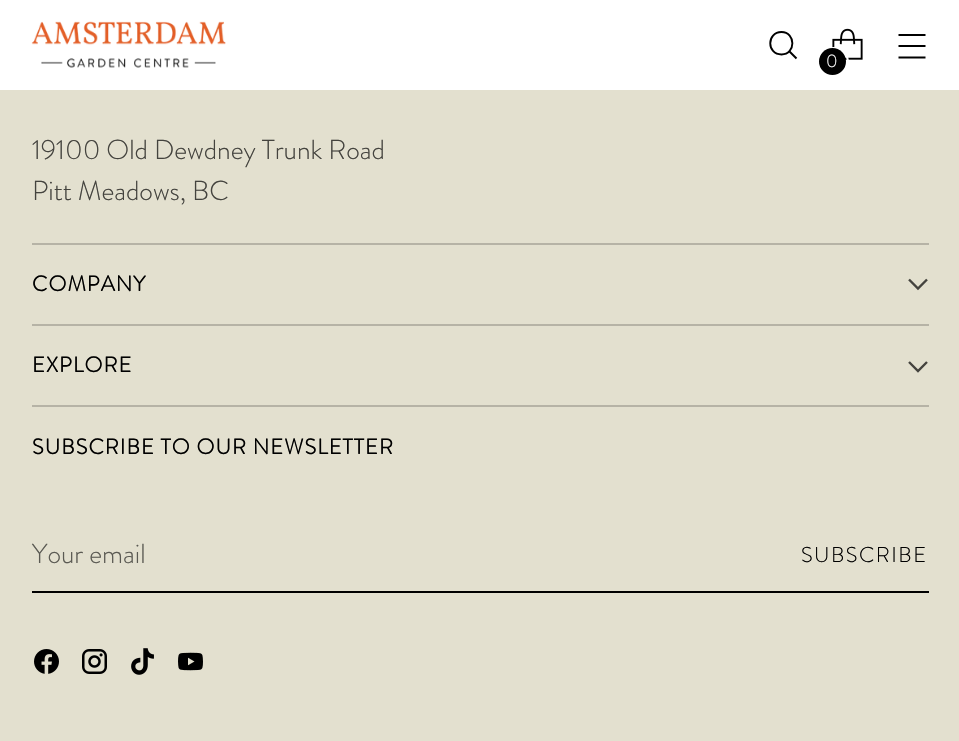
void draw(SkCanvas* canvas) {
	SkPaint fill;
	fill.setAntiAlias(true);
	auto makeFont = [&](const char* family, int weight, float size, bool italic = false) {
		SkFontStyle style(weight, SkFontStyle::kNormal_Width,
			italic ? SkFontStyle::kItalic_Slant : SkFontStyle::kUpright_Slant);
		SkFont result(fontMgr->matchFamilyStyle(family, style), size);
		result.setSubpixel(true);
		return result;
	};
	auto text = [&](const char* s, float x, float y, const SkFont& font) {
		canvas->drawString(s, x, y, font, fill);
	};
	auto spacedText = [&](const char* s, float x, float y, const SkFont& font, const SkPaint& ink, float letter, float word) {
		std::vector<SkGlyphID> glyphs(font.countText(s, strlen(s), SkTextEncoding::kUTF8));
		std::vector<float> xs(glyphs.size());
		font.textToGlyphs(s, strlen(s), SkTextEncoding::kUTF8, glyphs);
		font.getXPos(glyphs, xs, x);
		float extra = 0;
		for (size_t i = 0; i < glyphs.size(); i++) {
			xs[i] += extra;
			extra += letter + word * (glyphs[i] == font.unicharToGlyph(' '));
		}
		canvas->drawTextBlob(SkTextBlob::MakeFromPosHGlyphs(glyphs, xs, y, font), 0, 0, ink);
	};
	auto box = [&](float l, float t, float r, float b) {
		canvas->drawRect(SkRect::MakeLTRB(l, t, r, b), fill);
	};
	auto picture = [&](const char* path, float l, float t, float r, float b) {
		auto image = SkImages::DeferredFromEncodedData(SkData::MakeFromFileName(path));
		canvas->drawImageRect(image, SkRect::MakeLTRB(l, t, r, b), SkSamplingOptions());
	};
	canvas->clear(0xFFE3E0CF);
	fill.setColor(0xFFFFFFFF);
	box(0, 0, 959, 90);
	picture("image0.png", 31, 21, 226, 68);
	fill.setStyle(SkPaint::kStroke_Style);
	fill.setStrokeWidth(1.9f);
	fill.setStrokeCap(SkPaint::kRound_Cap);
	fill.setColor(0xFF000000);
	canvas->drawPath(SkPathBuilder().moveTo(781.5f, 54.5f).cubicTo(796, 54.5f, 796, 32, 781.5f, 32).cubicTo(766.5f, 32, 766.5f, 54.5f, 781.5f, 54.5f).close().detach(), fill);
	fill.setStrokeCap(SkPaint::kButt_Cap);
	canvas->drawPath(SkPathBuilder().moveTo(789.5f, 51.5f).lineTo(796.5f, 58.5f).detach(), fill);
	canvas->drawPath(SkPathBuilder().moveTo(898.5f, 46).lineTo(925.5f, 46).moveTo(898.5f, 35).lineTo(925.5f, 35).moveTo(898.5f, 57.5f).lineTo(925.5f, 57.5f).detach(), fill);
	picture("image1.png", 832, 28, 863, 60);
	fill.setStrokeWidth(2);
	fill.setColor(0xFFFFFFFF);
	canvas->drawCircle(833.5f, 62.5f, 14.5f, fill);
	fill.setStyle(SkPaint::kFill_Style);
	fill.setColor(0xFF000000);
	canvas->drawCircle(832.5f, 61.5f, 13.5f, fill);
	fill.setColor(0xFFB6B3A6);
	box(32, 243, 929, 245);
	box(32, 324, 929, 326);
	fill.setStyle(SkPaint::kStroke_Style);
	fill.setStrokeWidth(2.4f);
	fill.setColor(0xFF44433E);
	canvas->drawPath(SkPathBuilder().moveTo(909, 279.5f).lineTo(918, 288.5f).lineTo(927, 279.5f).detach(), fill);
	fill.setStyle(SkPaint::kFill_Style);
	fill.setColor(0xFFB6B3A6);
	box(32, 405, 929, 407);
	fill.setStyle(SkPaint::kStroke_Style);
	fill.setColor(0xFF44433E);
	canvas->drawPath(SkPathBuilder().moveTo(909, 362).lineTo(918, 371).lineTo(927, 362).detach(), fill);
	fill.setStyle(SkPaint::kFill_Style);
	fill.setColor(0xFF000000);
	box(32, 591, 929, 593);
	picture("image2.png", 34, 649, 59, 674);
	picture("image3.png", 82, 649, 107, 674);
	picture("image4.png", 131, 648, 154, 675);
	picture("image5.png", 178, 652, 203, 671);
	auto font1 = makeFont("Brandon Grotesque", 300, 18);
	fill.setColor(0xFFFFFFFF);
	text("0", 826, 67, font1);
	auto font2 = makeFont("Brandon Grotesque", 300, 27.5f);
	fill.setColor(0xFF44433E);
	text("19100 Old Dewdney Trunk Road", 32, 159, font2);
	text("Pitt Meadows, BC", 32, 200, font2);
	auto font3 = makeFont("Brandon Grotesque", 700, 21.4f);
	fill.setColor(0xFF000000);
	spacedText("COMPANY", 32, 291, font3, fill, 1.1f, 0);
	spacedText("EXPLORE", 32, 372, font3, fill, 1.1f, 0);
	spacedText("SUBSCRIBE TO OUR NEWSLETTER", 32, 454, font3, fill, 1.1f, 0);
	fill.setColor(0xFF5B5A53);
	text("Your email", 32, 563, font2);
	auto font4 = makeFont("Brandon Grotesque", 300, 21.4f);
	fill.setColor(0xFF000000);
	spacedText("SUBSCRIBE", 801, 562, font4, fill, 1.5f, 0);
}
